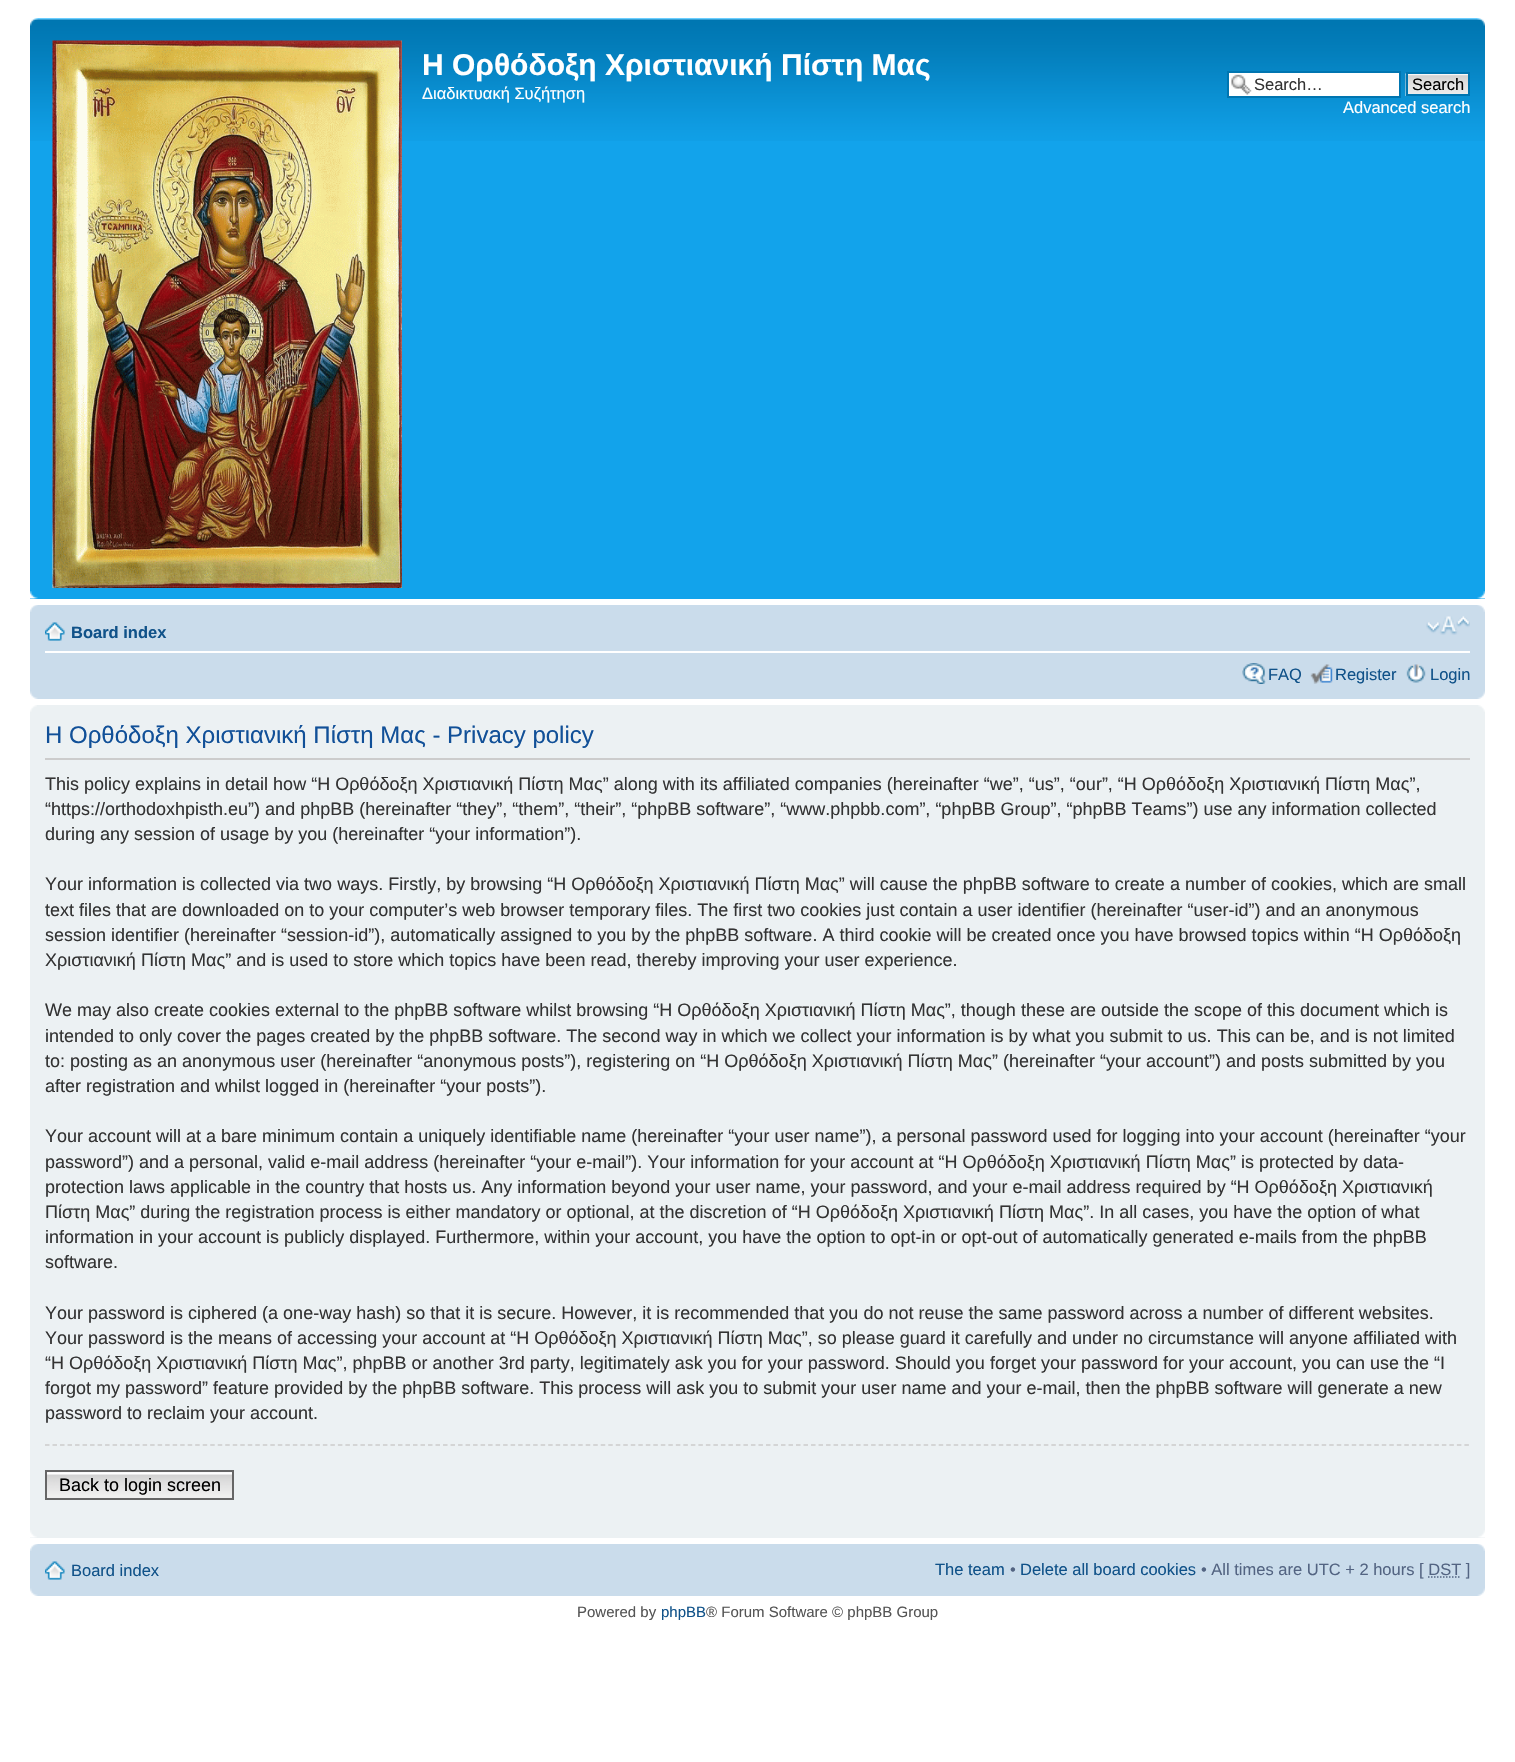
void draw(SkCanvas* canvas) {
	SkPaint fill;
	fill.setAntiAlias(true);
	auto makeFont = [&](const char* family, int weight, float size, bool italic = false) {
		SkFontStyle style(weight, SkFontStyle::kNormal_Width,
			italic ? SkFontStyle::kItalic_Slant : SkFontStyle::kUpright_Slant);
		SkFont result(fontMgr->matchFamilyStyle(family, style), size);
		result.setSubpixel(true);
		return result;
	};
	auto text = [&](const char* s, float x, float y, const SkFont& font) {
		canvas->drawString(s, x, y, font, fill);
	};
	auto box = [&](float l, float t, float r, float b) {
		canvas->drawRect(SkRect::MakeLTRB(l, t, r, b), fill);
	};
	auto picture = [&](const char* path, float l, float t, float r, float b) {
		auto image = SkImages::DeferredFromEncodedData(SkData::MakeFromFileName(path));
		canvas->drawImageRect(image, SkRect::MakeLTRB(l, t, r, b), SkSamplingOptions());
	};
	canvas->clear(0xFFFFFFFF);
	fill.setColor(0xFF12A3EB);
	box(30, 141, 1485, 599);
	picture("image0.png", 30, 18, 1485, 141);
	picture("image1.png", 30, 18, 38, 26);
	picture("image2.png", 1477, 18, 1485, 26);
	picture("image3.png", 52, 40, 402, 588);
	fill.setColor(0xFFFFFFFF);
	box(1229, 73, 1399, 96);
	picture("image4.png", 1231, 74, 1252, 95);
	fill.setStyle(SkPaint::kStroke_Style);
	fill.setStrokeWidth(2);
	fill.setColor(0xFF0075B0);
	canvas->drawRect(SkRect::MakeLTRB(1228, 72, 1400, 97), fill);
	picture("image5.png", 1405, 73, 1468, 96);
	canvas->drawRect(SkRect::MakeLTRB(1407, 73, 1469, 95), fill);
	picture("image6.png", 30, 591, 38, 599);
	picture("image7.png", 1477, 591, 1485, 599);
	fill.setStyle(SkPaint::kFill_Style);
	fill.setColor(0xFFCADCEB);
	box(30, 605, 1485, 699);
	picture("image8.png", 30, 605, 38, 612);
	picture("image9.png", 1477, 605, 1485, 612);
	fill.setColor(0xFFFFFFFF);
	box(45, 651, 1470, 653);
	picture("image10.png", 45, 622, 65, 641);
	picture("image11.png", 1426, 616, 1470, 635);
	picture("image12.png", 1242, 663, 1266, 684);
	picture("image13.png", 1310, 664, 1333, 684);
	picture("image14.png", 1406, 664, 1426, 683);
	picture("image15.png", 30, 691, 38, 699);
	picture("image16.png", 1477, 691, 1485, 699);
	fill.setColor(0xFFECF1F3);
	box(30, 705, 1485, 1538);
	picture("image17.png", 30, 705, 37, 712);
	picture("image18.png", 1478, 705, 1485, 712);
	fill.setColor(0xFFCCCCCC);
	box(45, 758, 1470, 760);
	fill.setStyle(SkPaint::kStroke_Style);
	fill.setStrokeWidth(1.5f);
	fill.setPathEffect(SkDashPathEffect::Make({{4.5f, 3.01f}}, 0));
	canvas->drawPath(SkPathBuilder().moveTo(45, 1445).lineTo(1470, 1445).detach(), fill);
	fill.setPathEffect(nullptr);
	picture("image19.png", 47, 1473, 232, 1498);
	fill.setStyle(SkPaint::kFill_Style);
	fill.setColor(0xFFFAFAFA);
	box(47, 1472, 232, 1473);
	fill.setStyle(SkPaint::kStroke_Style);
	fill.setStrokeWidth(2);
	fill.setColor(0xFF666666);
	canvas->drawRect(SkRect::MakeLTRB(46, 1471, 233, 1499), fill);
	picture("image20.png", 30, 1530, 37, 1538);
	picture("image21.png", 1478, 1530, 1485, 1538);
	fill.setStyle(SkPaint::kFill_Style);
	fill.setColor(0xFFCADCEB);
	box(30, 1544, 1485, 1596);
	picture("image8.png", 30, 1544, 38, 1551);
	picture("image9.png", 1477, 1544, 1485, 1551);
	picture("image10.png", 45, 1561, 65, 1580);
	fill.setStyle(SkPaint::kStroke_Style);
	fill.setStrokeWidth(1.5f);
	fill.setColor(0xFF536482);
	fill.setPathEffect(SkDashPathEffect::Make({{1.5f, 1.5f}}, 0));
	canvas->drawPath(SkPathBuilder().moveTo(1428, 1577).lineTo(1461, 1577).detach(), fill);
	fill.setPathEffect(nullptr);
	picture("image15.png", 30, 1588, 38, 1596);
	picture("image16.png", 1477, 1588, 1485, 1596);
	auto font1 = makeFont("Liberation Sans", 700, 30);
	fill.setStyle(SkPaint::kFill_Style);
	fill.setColor(0xFFFFFFFF);
	text("Η Ορθόδοξη Χριστιανική Πίστη Μας", 422, 75, font1);
	auto font2 = makeFont("Liberation Sans", 400, 16.5f);
	text("Διαδικτυακή Συζήτηση", 422, 99, font2);
	fill.setColor(0xFF333333);
	text("Search…", 1254, 90, font2);
	fill.setColor(0xFF000000);
	text("Search", 1412, 90, font2);
	fill.setColor(0xFFFFFFFF);
	text("Advanced search", 1343, 113, font2);
	auto font3 = makeFont("Liberation Sans", 700, 16.5f);
	fill.setColor(0xFF105289);
	text("Board index", 71, 638, font3);
	text("FAQ", 1268, 680, font2);
	text("Register", 1335, 680, font2);
	text("Login", 1430, 680, font2);
	auto font4 = makeFont("Liberation Sans", 400, 24);
	fill.setColor(0xFF115098);
	text("Η Ορθόδοξη Χριστιανική Πίστη Μας - Privacy policy", 45, 743, font4);
	auto font5 = makeFont("Liberation Sans", 400, 18);
	fill.setColor(0xFF333333);
	text("This policy explains in detail how “Η Ορθόδοξη Χριστιανική Πίστη Μας” along with its affiliated companies (hereinafter “we”, “us”, “our”, “Η Ορθόδοξη Χριστιανική Πίστη Μας”,", 45, 790, font5);
	text("“https://orthodoxhpisth.eu”) and phpBB (hereinafter “they”, “them”, “their”, “phpBB software”, “www.phpbb.com”, “phpBB Group”, “phpBB Teams”) use any information collected", 45, 815, font5);
	text("during any session of usage by you (hereinafter “your information”).", 45, 840, font5);
	text("Your information is collected via two ways. Firstly, by browsing “Η Ορθόδοξη Χριστιανική Πίστη Μας” will cause the phpBB software to create a number of cookies, which are small", 45, 890, font5);
	text("text files that are downloaded on to your computer’s web browser temporary files. The first two cookies just contain a user identifier (hereinafter “user-id”) and an anonymous", 45, 916, font5);
	text("session identifier (hereinafter “session-id”), automatically assigned to you by the phpBB software. A third cookie will be created once you have browsed topics within “Η Ορθόδοξη", 45, 941, font5);
	text("Χριστιανική Πίστη Μας” and is used to store which topics have been read, thereby improving your user experience.", 45, 966, font5);
	text("We may also create cookies external to the phpBB software whilst browsing “Η Ορθόδοξη Χριστιανική Πίστη Μας”, though these are outside the scope of this document which is", 45, 1016, font5);
	text("intended to only cover the pages created by the phpBB software. The second way in which we collect your information is by what you submit to us. This can be, and is not limited", 45, 1042, font5);
	text("to: posting as an anonymous user (hereinafter “anonymous posts”), registering on “Η Ορθόδοξη Χριστιανική Πίστη Μας” (hereinafter “your account”) and posts submitted by you", 45, 1067, font5);
	text("after registration and whilst logged in (hereinafter “your posts”).", 45, 1092, font5);
	text("Your account will at a bare minimum contain a uniquely identifiable name (hereinafter “your user name”), a personal password used for logging into your account (hereinafter “your", 45, 1142, font5);
	text("password”) and a personal, valid e-mail address (hereinafter “your e-mail”). Your information for your account at “Η Ορθόδοξη Χριστιανική Πίστη Μας” is protected by data-", 45, 1168, font5);
	text("protection laws applicable in the country that hosts us. Any information beyond your user name, your password, and your e-mail address required by “Η Ορθόδοξη Χριστιανική", 45, 1193, font5);
	text("Πίστη Μας” during the registration process is either mandatory or optional, at the discretion of “Η Ορθόδοξη Χριστιανική Πίστη Μας”. In all cases, you have the option of what", 45, 1218, font5);
	text("information in your account is publicly displayed. Furthermore, within your account, you have the option to opt-in or opt-out of automatically generated e-mails from the phpBB", 45, 1243, font5);
	text("software.", 45, 1268, font5);
	text("Your password is ciphered (a one-way hash) so that it is secure. However, it is recommended that you do not reuse the same password across a number of different websites.", 45, 1319, font5);
	text("Your password is the means of accessing your account at “Η Ορθόδοξη Χριστιανική Πίστη Μας”, so please guard it carefully and under no circumstance will anyone affiliated with", 45, 1344, font5);
	text("“Η Ορθόδοξη Χριστιανική Πίστη Μας”, phpBB or another 3rd party, legitimately ask you for your password. Should you forget your password for your account, you can use the “I", 45, 1369, font5);
	text("forgot my password” feature provided by the phpBB software. This process will ask you to submit your user name and your e-mail, then the phpBB software will generate a new", 45, 1394, font5);
	text("password to reclaim your account.", 45, 1419, font5);
	fill.setColor(0xFF000000);
	text("Back to login screen", 59, 1491, font5);
	fill.setColor(0xFF105289);
	text("Board index", 71, 1576, font2);
	text("The team", 935, 1575, font2);
	fill.setColor(0xFF536482);
	text("•", 1010, 1575, font2);
	fill.setColor(0xFF105289);
	text("Delete all board cookies", 1020, 1575, font2);
	fill.setColor(0xFF536482);
	text("• All times are UTC + 2 hours [ DST ]", 1201, 1575, font2);
	auto font6 = makeFont("Liberation Sans", 400, 15);
	fill.setColor(0xFF555555);
	text("Powered by", 577, 1617, font6);
	fill.setColor(0xFF105289);
	text("phpBB", 661, 1617, font6);
	fill.setColor(0xFF555555);
	text("® Forum Software © phpBB Group", 706, 1617, font6);
}
